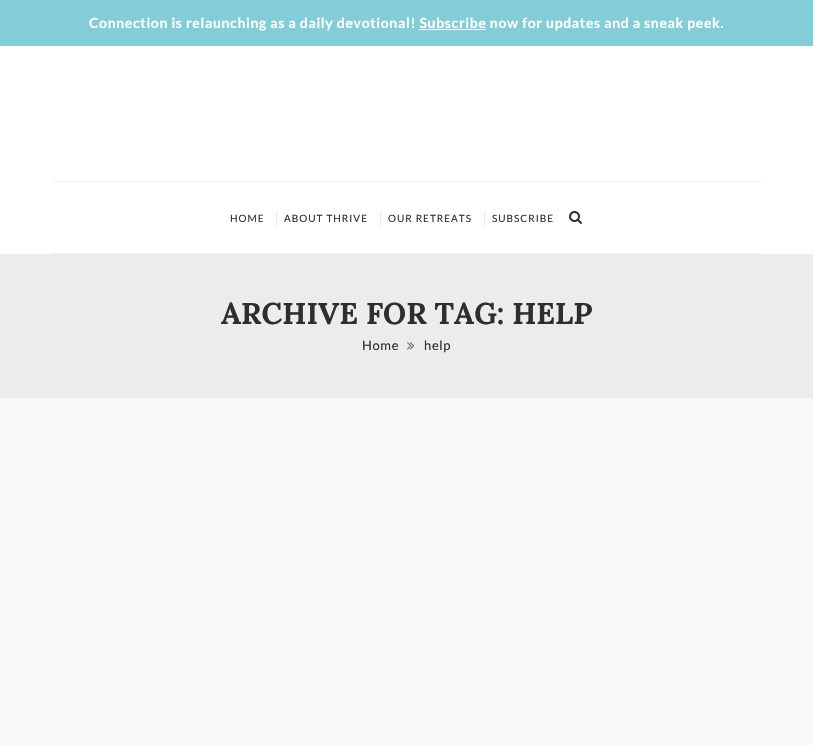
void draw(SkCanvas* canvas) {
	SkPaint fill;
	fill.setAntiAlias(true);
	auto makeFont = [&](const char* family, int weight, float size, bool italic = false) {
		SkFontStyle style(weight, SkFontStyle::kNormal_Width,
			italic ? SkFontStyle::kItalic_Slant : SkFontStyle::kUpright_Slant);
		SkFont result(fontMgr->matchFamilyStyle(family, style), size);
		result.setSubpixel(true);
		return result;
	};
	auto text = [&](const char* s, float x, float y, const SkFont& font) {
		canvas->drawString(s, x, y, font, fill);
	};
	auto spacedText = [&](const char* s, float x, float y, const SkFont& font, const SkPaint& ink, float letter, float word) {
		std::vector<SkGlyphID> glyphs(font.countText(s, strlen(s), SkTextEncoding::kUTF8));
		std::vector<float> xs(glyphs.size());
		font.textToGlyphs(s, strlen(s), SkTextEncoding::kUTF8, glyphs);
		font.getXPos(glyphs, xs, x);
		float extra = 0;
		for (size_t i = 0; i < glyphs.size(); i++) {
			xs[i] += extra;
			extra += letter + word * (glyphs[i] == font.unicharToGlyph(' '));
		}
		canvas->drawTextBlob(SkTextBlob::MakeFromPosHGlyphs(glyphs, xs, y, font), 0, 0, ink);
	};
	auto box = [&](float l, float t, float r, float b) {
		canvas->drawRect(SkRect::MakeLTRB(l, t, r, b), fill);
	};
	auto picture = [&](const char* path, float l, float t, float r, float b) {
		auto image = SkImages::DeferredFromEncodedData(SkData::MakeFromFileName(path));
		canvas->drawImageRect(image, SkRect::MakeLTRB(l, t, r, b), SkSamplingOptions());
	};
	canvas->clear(0xFFF8F8F8);
	fill.setColor(0xFF83CDD9);
	box(0, 0, 813, 46);
	fill.setColor(0xFFFFFFFF);
	box(419, 29, 486, 30);
	box(0, 46, 813, 254);
	fill.setColor(0xFFEEEEEE);
	box(52, 181, 762, 182);
	box(52, 253, 762, 254);
	fill.setColor(0xFFEAEAEB);
	box(276, 211, 277, 226);
	box(380, 211, 381, 226);
	box(484, 211, 485, 226);
	picture("image0.png", 569, 211, 582, 224);
	fill.setColor(0xFFECECEC);
	box(0, 254, 813, 398);
	picture("image1.png", 407, 342, 414, 350);
	auto font1 = makeFont("Lato", 700, 14);
	fill.setColor(0xFFFFFFFF);
	spacedText("Connection is relaunching as a daily devotional! Subscribe now for updates and a sneak peek.", 89, 28, font1, fill, 0.65f, 0);
	auto font2 = makeFont("Lato", 400, 10);
	fill.setColor(0xFF2F2E2E);
	spacedText("HOME", 230, 222, font2, fill, 1, 0);
	spacedText("ABOUT THRIVE", 284, 222, font2, fill, 1, 0);
	spacedText("OUR RETREATS", 388, 222, font2, fill, 1, 0);
	spacedText("SUBSCRIBE", 492, 222, font2, fill, 1, 0);
	auto font3 = makeFont("Lora", 700, 30);
	text("ARCHIVE FOR TAG: HELP", 221, 324, font3);
	auto font4 = makeFont("Lato", 400, 13);
	spacedText("Home", 362, 350, font4, fill, 0.65f, 0);
	spacedText("help", 424, 350, font4, fill, 0.65f, 0);
}
